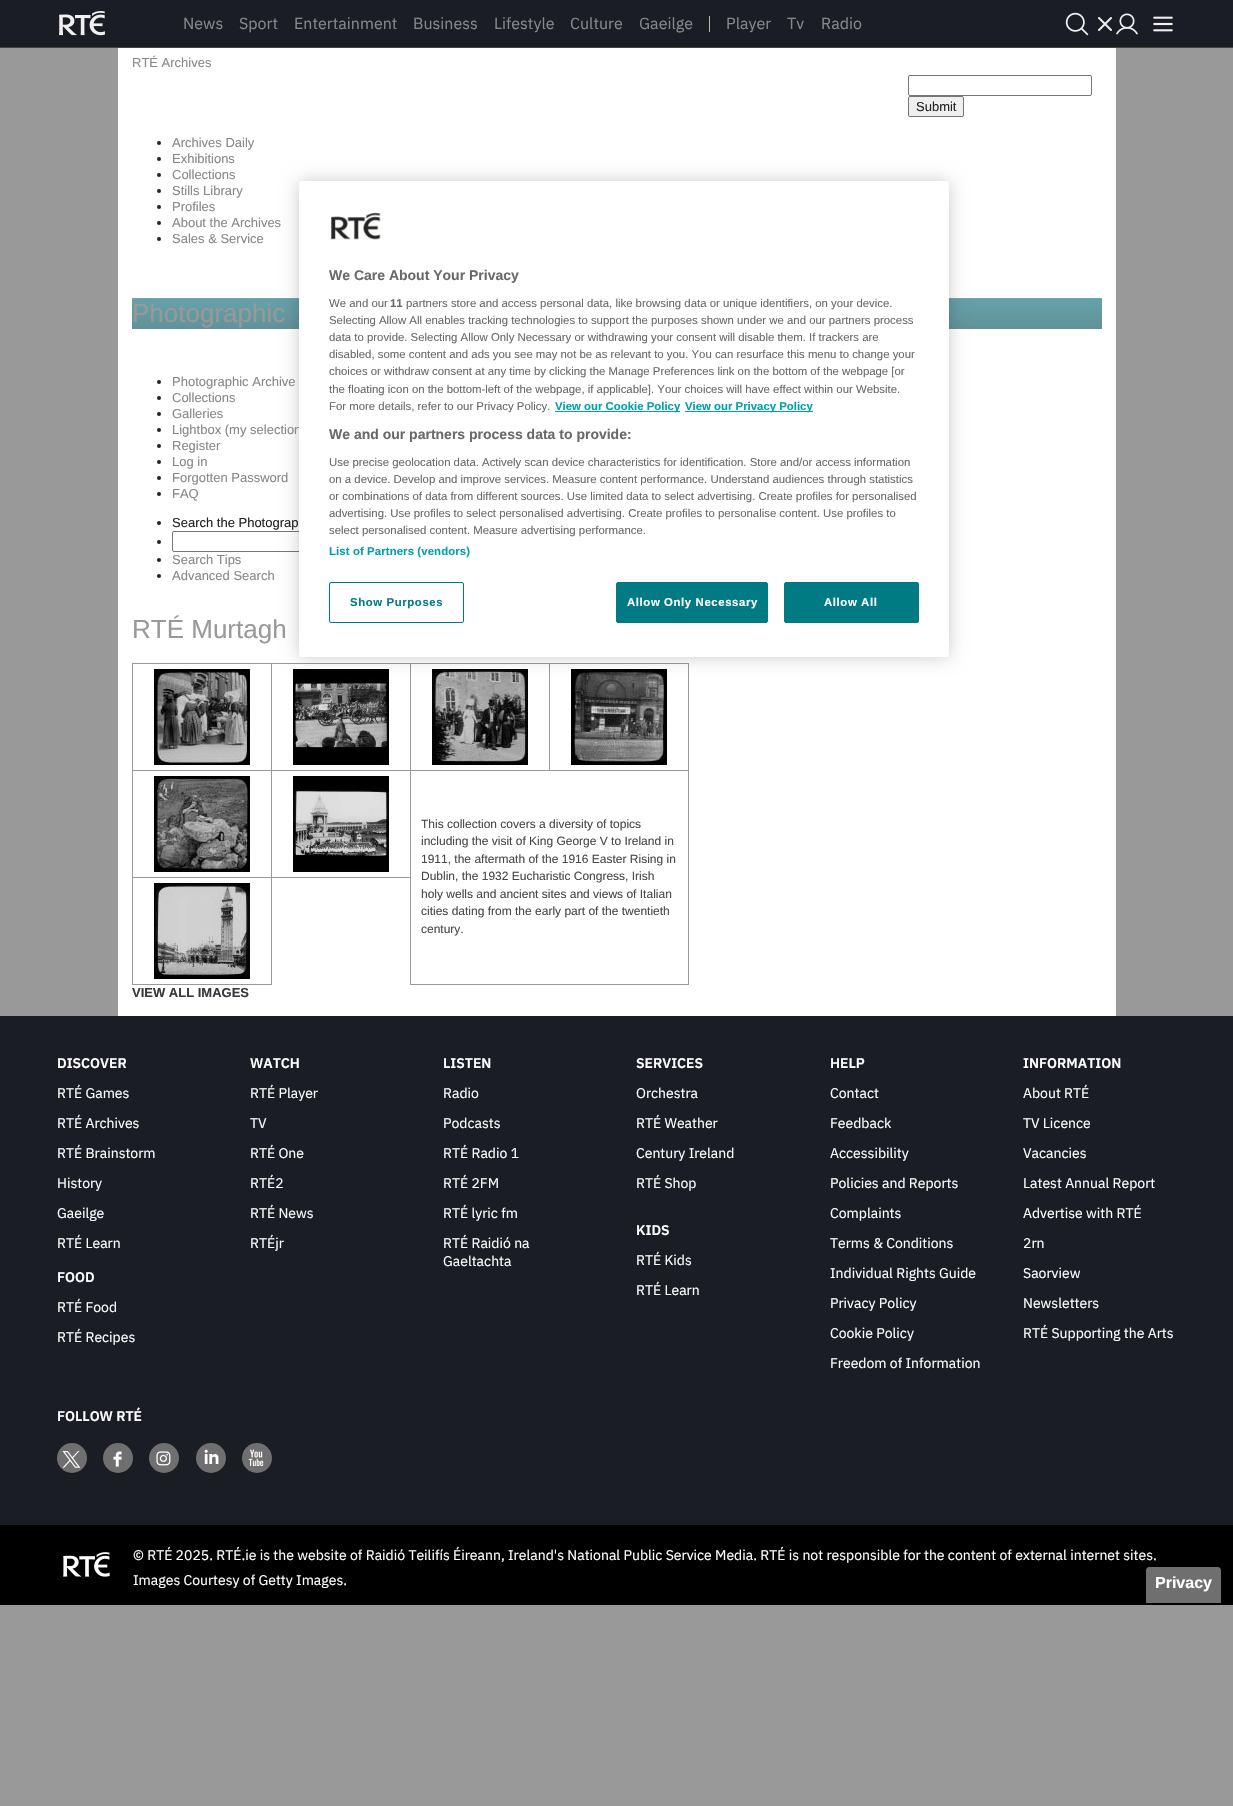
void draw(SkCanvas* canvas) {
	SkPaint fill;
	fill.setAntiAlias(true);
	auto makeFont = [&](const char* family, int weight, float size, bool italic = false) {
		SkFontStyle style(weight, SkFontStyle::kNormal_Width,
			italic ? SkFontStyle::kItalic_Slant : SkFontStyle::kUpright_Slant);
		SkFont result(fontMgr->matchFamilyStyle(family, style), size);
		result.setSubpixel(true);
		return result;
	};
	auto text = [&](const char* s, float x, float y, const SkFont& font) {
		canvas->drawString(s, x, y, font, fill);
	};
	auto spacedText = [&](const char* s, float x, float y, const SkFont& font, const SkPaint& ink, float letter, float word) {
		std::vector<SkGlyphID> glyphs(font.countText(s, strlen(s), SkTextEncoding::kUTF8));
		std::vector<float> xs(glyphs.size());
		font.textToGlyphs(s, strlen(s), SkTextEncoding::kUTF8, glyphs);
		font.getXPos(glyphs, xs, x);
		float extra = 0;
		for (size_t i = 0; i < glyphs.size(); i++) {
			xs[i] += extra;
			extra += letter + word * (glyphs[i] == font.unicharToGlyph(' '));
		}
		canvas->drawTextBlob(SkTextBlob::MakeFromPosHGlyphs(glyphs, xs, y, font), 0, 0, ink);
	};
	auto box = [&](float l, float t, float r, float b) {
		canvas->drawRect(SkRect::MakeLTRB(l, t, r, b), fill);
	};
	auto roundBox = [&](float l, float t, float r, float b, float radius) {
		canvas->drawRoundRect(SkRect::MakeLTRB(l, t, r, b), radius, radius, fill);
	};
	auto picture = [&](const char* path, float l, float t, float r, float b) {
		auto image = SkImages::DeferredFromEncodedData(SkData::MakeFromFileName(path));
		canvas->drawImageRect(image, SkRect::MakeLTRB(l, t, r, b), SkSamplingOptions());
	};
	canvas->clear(0xFF999999);
	fill.setColor(0xFF1A1E24);
	box(0, 0, 1233, 47);
	fill.setColor(0xFF47453E);
	box(0, 47, 1233, 48);
	picture("image0.png", 59, 11, 105, 36);
	fill.setColor(0xFFBCB8B0);
	box(709, 16, 710, 32);
	picture("image1.png", 1065, 12, 1089, 36);
	picture("image2.png", 1098, 17, 1112, 31);
	picture("image3.png", 1116, 13, 1138, 35);
	picture("image4.png", 1153, 16, 1173, 32);
	fill.setColor(0xFFFFFFFF);
	box(118, 48, 1116, 1016);
	fill.setStyle(SkPaint::kStroke_Style);
	fill.setStrokeWidth(1);
	fill.setColor(0xFF767676);
	canvas->drawRoundRect(SkRect::MakeLTRB(908.5f, 75.5f, 1091.5f, 95.5f), 1.5f, 1.5f, fill);
	fill.setStyle(SkPaint::kFill_Style);
	fill.setColor(0xFFEFEFEF);
	canvas->drawRoundRect(SkRect::MakeLTRB(908.5f, 96.5f, 963.5f, 116.5f), 1.5f, 1.5f, fill);
	fill.setStyle(SkPaint::kStroke_Style);
	fill.setColor(0xFF767676);
	canvas->drawRoundRect(SkRect::MakeLTRB(908.5f, 96.5f, 963.5f, 116.5f), 1.5f, 1.5f, fill);
	fill.setStyle(SkPaint::kFill_Style);
	fill.setColor(0xFF222222);
	canvas->drawCircle(159, 143, 2, fill);
	canvas->drawCircle(159, 159, 2, fill);
	canvas->drawCircle(159, 175, 2, fill);
	canvas->drawCircle(159, 191, 2, fill);
	canvas->drawCircle(159, 207, 2, fill);
	canvas->drawCircle(159, 223, 2, fill);
	canvas->drawCircle(159, 239, 2, fill);
	picture("image6.png", 132, 298, 1102, 329);
	fill.setStyle(SkPaint::kStroke_Style);
	fill.setColor(0xFF767676);
	canvas->drawRoundRect(SkRect::MakeLTRB(172.5f, 531.5f, 355.5f, 551.5f), 1.5f, 1.5f, fill);
	fill.setStyle(SkPaint::kFill_Style);
	fill.setColor(0xFF999999);
	box(549, 663, 689, 664);
	box(410, 770, 689, 771);
	box(549, 663, 550, 771);
	box(410, 663, 550, 664);
	box(688, 770, 689, 985);
	box(410, 984, 689, 985);
	box(410, 770, 411, 985);
	box(271, 770, 411, 771);
	box(410, 663, 411, 771);
	box(271, 663, 411, 664);
	box(132, 877, 272, 878);
	box(271, 877, 272, 985);
	box(271, 877, 411, 878);
	box(271, 770, 272, 878);
	box(132, 770, 272, 771);
	box(271, 663, 272, 771);
	box(132, 663, 272, 664);
	picture("image8.png", 293, 669, 389, 765);
	picture("image9.png", 432, 669, 528, 765);
	box(688, 663, 689, 771);
	picture("image10.png", 571, 669, 667, 765);
	fill.setColor(0x33000000);
	fill.setMaskFilter(SkMaskFilter::MakeBlur(kNormal_SkBlurStyle, 9));
	canvas->drawRoundRect(SkRect::MakeLTRB(299, 181, 949, 657), 2.5f, 2.5f, fill);
	fill.setMaskFilter(nullptr);
	fill.setColor(0xFF222222);
	canvas->drawCircle(159, 382, 2, fill);
	canvas->drawCircle(159, 398, 2, fill);
	canvas->drawCircle(159, 414, 2, fill);
	canvas->drawCircle(159, 430, 2, fill);
	canvas->drawCircle(159, 446, 2, fill);
	canvas->drawCircle(159, 462, 2, fill);
	canvas->drawCircle(159, 478, 2, fill);
	canvas->drawCircle(159, 494, 2, fill);
	canvas->drawCircle(159, 523, 2, fill);
	canvas->drawCircle(159, 542, 2, fill);
	canvas->drawCircle(159, 560, 2, fill);
	canvas->drawCircle(159, 576, 2, fill);
	fill.setColor(0xFF999999);
	box(132, 984, 272, 985);
	box(132, 877, 133, 985);
	box(132, 770, 133, 878);
	box(132, 663, 133, 771);
	picture("image7.png", 154, 669, 250, 765);
	picture("image11.png", 154, 883, 250, 979);
	picture("image12.png", 154, 776, 250, 872);
	picture("image13.png", 293, 776, 389, 872);
	fill.setColor(0xFF1A1E24);
	box(0, 1016, 1233, 1525);
	fill.setColor(0xFF6F6F6F);
	canvas->drawCircle(72, 1458, 15, fill);
	picture("image14.png", 62, 1451, 81, 1468);
	canvas->drawCircle(118, 1458, 15, fill);
	picture("image15.png", 113, 1451, 122, 1467);
	canvas->drawCircle(164, 1458, 15, fill);
	picture("image16.png", 156, 1451, 171, 1466);
	canvas->drawCircle(211, 1458, 15, fill);
	picture("image17.png", 204, 1449, 219, 1464);
	canvas->drawCircle(257, 1458, 15, fill);
	picture("image18.png", 248, 1449, 264, 1467);
	fill.setColor(0xFF000000);
	box(0, 1525, 1233, 1605);
	picture("image19.png", 63, 1552, 110, 1577);
	fill.setColor(0xFF6F6F6F);
	canvas->drawPath(SkPathBuilder().moveTo(1149, 1566).lineTo(1218, 1566).cubicTo(1220, 1566, 1222, 1568, 1222, 1570).lineTo(1222, 1604).lineTo(1145, 1604).lineTo(1145, 1570).cubicTo(1145, 1568, 1147, 1566, 1149, 1566).close().detach(), fill);
	fill.setStyle(SkPaint::kStroke_Style);
	fill.setStrokeWidth(2);
	fill.setColor(0xFF000000);
	canvas->drawPath(SkPathBuilder().moveTo(1149, 1566).lineTo(1218, 1566).cubicTo(1220, 1566, 1222, 1568, 1222, 1570).lineTo(1222, 1604).lineTo(1145, 1604).lineTo(1145, 1570).cubicTo(1145, 1568, 1147, 1566, 1149, 1566).close().detach(), fill);
	auto font1 = makeFont("IBM Plex Sans", 400, 16);
	fill.setStyle(SkPaint::kFill_Style);
	fill.setColor(0xFF888888);
	text("News", 183, 29, font1);
	text("Sport", 239, 29, font1);
	text("Entertainment", 294, 29, font1);
	text("Business", 413, 29, font1);
	text("Lifestyle", 494, 29, font1);
	text("Culture", 570, 29, font1);
	text("Gaeilge", 639, 29, font1);
	text("Player", 726, 29, font1);
	text("Tv", 787, 29, font1);
	text("Radio", 821, 29, font1);
	auto font2 = makeFont("Liberation Sans", 400, 13);
	text("RTÉ Archives", 132, 67, font2);
	fill.setColor(0xFF222222);
	text("Submit", 916, 111, font2);
	fill.setColor(0xFF888888);
	text("Archives Daily", 172, 147, font2);
	text("Exhibitions", 172, 163, font2);
	text("Collections", 172, 179, font2);
	text("Stills Library", 172, 195, font2);
	text("Profiles", 172, 211, font2);
	text("About the Archives", 172, 227, font2);
	text("Sales & Service", 172, 243, font2);
	auto font3 = makeFont("Liberation Sans", 400, 26);
	fill.setColor(0xFF999999);
	text("Photographic", 132, 322, font3);
	fill.setColor(0xFF888888);
	text("Photographic Archive", 172, 386, font2);
	text("Collections", 172, 402, font2);
	text("Galleries", 172, 418, font2);
	text("Lightbox (my selection", 172, 434, font2);
	fill.setColor(0xFFFFFFFF);
	roundBox(299, 181, 949, 657, 2.5f);
	fill.setStyle(SkPaint::kStroke_Style);
	fill.setStrokeWidth(1);
	fill.setColor(0xFF007B84);
	canvas->drawRoundRect(SkRect::MakeLTRB(329.5f, 582.5f, 463.5f, 622.5f), 1.5f, 1.5f, fill);
	auto font4 = makeFont("Liberation Sans", 700, 11.38f);
	fill.setStyle(SkPaint::kFill_Style);
	spacedText("Show Purposes", 350, 606, font4, fill, 0.6f, 0);
	canvas->drawRoundRect(SkRect::MakeLTRB(784.5f, 582.5f, 918.5f, 622.5f), 1.5f, 1.5f, fill);
	fill.setStyle(SkPaint::kStroke_Style);
	canvas->drawRoundRect(SkRect::MakeLTRB(784.5f, 582.5f, 918.5f, 622.5f), 1.5f, 1.5f, fill);
	fill.setStyle(SkPaint::kFill_Style);
	fill.setColor(0xFFFFFFFF);
	spacedText("Allow All", 824, 606, font4, fill, 0.6f, 0);
	fill.setColor(0xFF007B84);
	canvas->drawRoundRect(SkRect::MakeLTRB(616.5f, 582.5f, 767.5f, 622.5f), 1.5f, 1.5f, fill);
	fill.setStyle(SkPaint::kStroke_Style);
	canvas->drawRoundRect(SkRect::MakeLTRB(616.5f, 582.5f, 767.5f, 622.5f), 1.5f, 1.5f, fill);
	fill.setStyle(SkPaint::kFill_Style);
	fill.setColor(0xFFFFFFFF);
	spacedText("Allow Only Necessary", 627, 606, font4, fill, 0.6f, 0);
	picture("image5.png", 330, 212, 381, 240);
	fill.setColor(0xFF00A1AD);
	spacedText("List of Partners (vendors)", 329, 555, font4, fill, 0.1f, 0);
	auto font5 = makeFont("Liberation Sans", 400, 11.38f);
	fill.setColor(0xFF696969);
	text("select personalised content. Measure advertising performance.", 329, 534, font5);
	text("advertising. Use profiles to select personalised advertising. Create profiles to personalise content. Use profiles to", 329, 517, font5);
	text("or combinations of data from different sources. Use limited data to select advertising. Create profiles for personalised", 329, 500, font5);
	text("on a device. Develop and improve services. Measure content performance. Understand audiences through statistics", 329, 483, font5);
	text("Use precise geolocation data. Actively scan device characteristics for identification. Store and/or access information", 329, 466, font5);
	auto font6 = makeFont("Liberation Sans", 700, 14);
	text("We and our partners process data to provide:", 329, 439, font6);
	fill.setColor(0xFF00A1AD);
	box(685, 411, 813, 412);
	text("View our Privacy Policy", 685, 410, font4);
	box(555, 411, 680, 412);
	text("View our Cookie Policy", 555, 410, font4);
	fill.setColor(0xFF696969);
	text("For more details, refer to our Privacy Policy.", 329, 410, font5);
	text("the floating icon on the bottom-left of the webpage, if applicable]. Your choices will have effect within our Website.", 329, 393, font5);
	text("choices or withdraw consent at any time by clicking the Manage Preferences link on the bottom of the webpage [or", 329, 375, font5);
	text("disabled, some content and ads you see may not be as relevant to you. You can resurface this menu to change your", 329, 358, font5);
	text("data to provide. Selecting Allow Only Necessary or withdrawing your consent will disable them. If trackers are", 329, 341, font5);
	text("Selecting Allow All enables tracking technologies to support the purposes shown under we and our partners process", 329, 324, font5);
	text("partners store and access personal data, like browsing data or unique identifiers, on your device.", 406, 307, font5);
	text("11", 390, 307, font4);
	text("We and our", 329, 307, font5);
	text("We Care About Your Privacy", 329, 280, font6);
	fill.setColor(0xFF888888);
	text("Register", 172, 450, font2);
	text("Log in", 172, 466, font2);
	text("Forgotten Password", 172, 482, font2);
	text("FAQ", 172, 498, font2);
	fill.setColor(0xFF222222);
	text("Search the Photograp", 172, 527, font2);
	fill.setColor(0xFF888888);
	text("Search Tips", 172, 564, font2);
	text("Advanced Search", 172, 580, font2);
	fill.setColor(0xFF999999);
	text("RTÉ Murtagh", 132, 638, font3);
	auto font7 = makeFont("Liberation Sans", 400, 12);
	fill.setColor(0xFF47484B);
	text("This collection covers a diversity of topics", 421, 828, font7);
	text("including the visit of King George V to Ireland in", 421, 845, font7);
	text("1911, the aftermath of the 1916 Easter Rising in", 421, 863, font7);
	text("Dublin, the 1932 Eucharistic Congress, Irish", 421, 880, font7);
	text("holy wells and ancient sites and views of Italian", 421, 898, font7);
	text("cities dating from the early part of the twentieth", 421, 915, font7);
	text("century.", 421, 933, font7);
	auto font8 = makeFont("Liberation Sans", 700, 13);
	fill.setColor(0xFF37383D);
	text("VIEW ALL IMAGES", 132, 997, font8);
	auto font9 = makeFont("IBM Plex Sans", 600, 14);
	fill.setColor(0xFFFFFFFF);
	text("DISCOVER", 57, 1068, font9);
	auto font10 = makeFont("IBM Plex Sans", 400, 14);
	text("RTÉ Games", 57, 1098, font10);
	text("RTÉ Archives", 57, 1128, font10);
	text("RTÉ Brainstorm", 57, 1158, font10);
	text("History", 57, 1188, font10);
	text("Gaeilge", 57, 1218, font10);
	text("RTÉ Learn", 57, 1248, font10);
	text("FOOD", 57, 1282, font9);
	text("RTÉ Food", 57, 1312, font10);
	text("RTÉ Recipes", 57, 1342, font10);
	text("WATCH", 250, 1068, font9);
	text("RTÉ Player", 250, 1098, font10);
	text("TV", 250, 1128, font10);
	text("RTÉ One", 250, 1158, font10);
	text("RTÉ2", 250, 1188, font10);
	text("RTÉ News", 250, 1218, font10);
	text("RTÉjr", 250, 1248, font10);
	text("LISTEN", 443, 1068, font9);
	text("Radio", 443, 1098, font10);
	text("Podcasts", 443, 1128, font10);
	text("RTÉ Radio 1", 443, 1158, font10);
	text("RTÉ 2FM", 443, 1188, font10);
	text("RTÉ lyric fm", 443, 1218, font10);
	text("RTÉ Raidió na", 443, 1248, font10);
	text("Gaeltachta", 443, 1266, font10);
	text("SERVICES", 636, 1068, font9);
	text("Orchestra", 636, 1098, font10);
	text("RTÉ Weather", 636, 1128, font10);
	text("Century Ireland", 636, 1158, font10);
	text("RTÉ Shop", 636, 1188, font10);
	text("KIDS", 636, 1235, font9);
	text("RTÉ Kids", 636, 1265, font10);
	text("RTÉ Learn", 636, 1295, font10);
	text("HELP", 830, 1068, font9);
	text("Contact", 830, 1098, font10);
	text("Feedback", 830, 1128, font10);
	text("Accessibility", 830, 1158, font10);
	text("Policies and Reports", 830, 1188, font10);
	text("Complaints", 830, 1218, font10);
	text("Terms & Conditions", 830, 1248, font10);
	text("Individual Rights Guide", 830, 1278, font10);
	text("Privacy Policy", 830, 1308, font10);
	text("Cookie Policy", 830, 1338, font10);
	text("Freedom of Information", 830, 1368, font10);
	text("INFORMATION", 1023, 1068, font9);
	text("About RTÉ", 1023, 1098, font10);
	text("TV Licence", 1023, 1128, font10);
	text("Vacancies", 1023, 1158, font10);
	text("Latest Annual Report", 1023, 1188, font10);
	text("Advertise with RTÉ", 1023, 1218, font10);
	text("2rn", 1023, 1248, font10);
	text("Saorview", 1023, 1278, font10);
	text("Newsletters", 1023, 1308, font10);
	text("RTÉ Supporting the Arts", 1023, 1338, font10);
	text("FOLLOW RTÉ", 57, 1421, font9);
	text("© RTÉ 2025. RTÉ.ie is the website of Raidió Teilifís Éireann, Ireland's National Public Service Media. RTÉ is not responsible for the content of external internet sites.", 133, 1560, font10);
	text("Images Courtesy of Getty Images.", 133, 1585, font10);
	auto font11 = makeFont("Liberation Sans", 700, 16);
	text("Privacy", 1155, 1588, font11);
}
